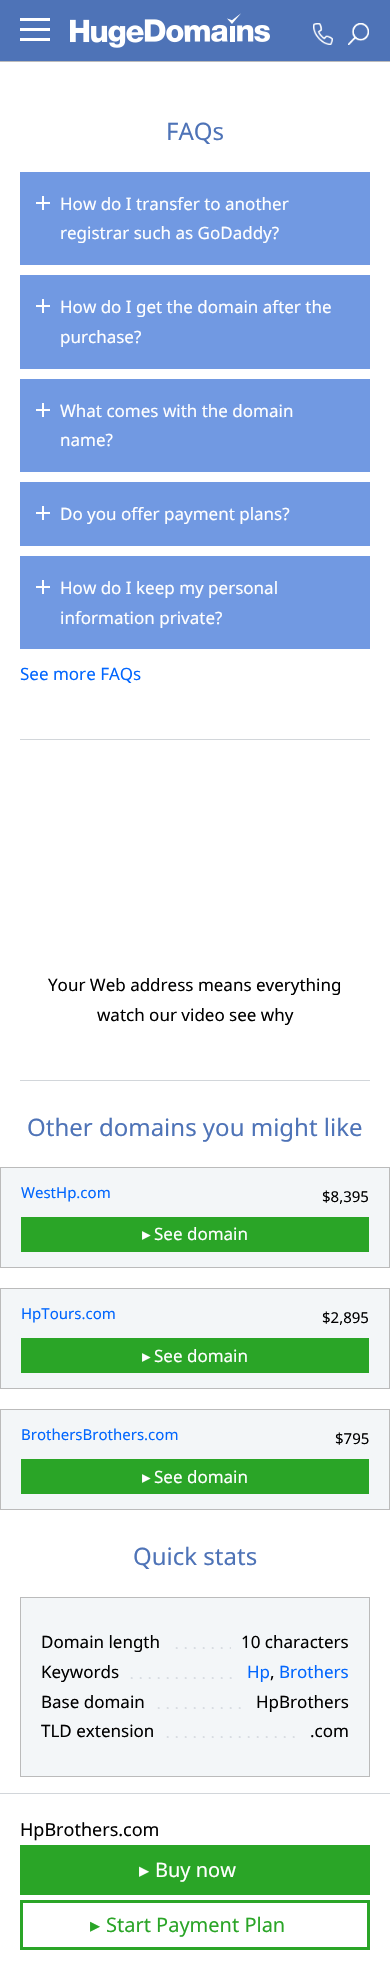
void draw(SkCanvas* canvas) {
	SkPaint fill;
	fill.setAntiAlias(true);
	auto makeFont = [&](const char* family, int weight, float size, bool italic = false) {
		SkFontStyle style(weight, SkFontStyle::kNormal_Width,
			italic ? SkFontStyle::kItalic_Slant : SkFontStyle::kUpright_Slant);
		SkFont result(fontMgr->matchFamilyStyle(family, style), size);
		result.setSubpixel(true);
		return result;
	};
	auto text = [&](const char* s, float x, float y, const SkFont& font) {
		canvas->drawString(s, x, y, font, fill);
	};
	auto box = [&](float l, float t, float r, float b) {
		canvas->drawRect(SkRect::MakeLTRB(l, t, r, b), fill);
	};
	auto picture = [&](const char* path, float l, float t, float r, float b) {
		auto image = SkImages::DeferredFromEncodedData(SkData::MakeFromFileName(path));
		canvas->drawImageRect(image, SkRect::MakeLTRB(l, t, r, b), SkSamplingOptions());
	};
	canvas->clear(0xFFFFFFFF);
	fill.setColor(0xFF4E73B7);
	box(0, 0, 390, 61);
	fill.setColor(0xFFBBBBBB);
	box(0, 61, 390, 62);
	fill.setColor(0xFFFFFFFF);
	box(20, 28, 50, 31);
	box(20, 18, 50, 21);
	box(20, 38, 50, 41);
	picture("image0.png", 70, 13, 270, 48);
	picture("image1.png", 313, 23, 333, 45);
	picture("image2.png", 348, 23, 369, 45);
	fill.setColor(0xFFD2D6DA);
	box(20, 739, 370, 740);
	fill.setColor(0xFF7199E2);
	box(20, 172, 370, 265);
	fill.setColor(0xFFFFFFFF);
	box(42, 196, 44, 210);
	box(36, 202, 50, 204);
	fill.setColor(0xFF7199E2);
	box(20, 275, 370, 369);
	fill.setColor(0xFFFFFFFF);
	box(42, 299, 44, 313);
	box(36, 305, 50, 307);
	fill.setColor(0xFF7199E2);
	box(20, 379, 370, 472);
	fill.setColor(0xFFFFFFFF);
	box(42, 403, 44, 417);
	box(36, 409, 50, 411);
	fill.setColor(0xFF7199E2);
	box(20, 482, 370, 546);
	fill.setColor(0xFFFFFFFF);
	box(42, 506, 44, 520);
	box(36, 512, 50, 514);
	fill.setColor(0xFF7199E2);
	box(20, 556, 370, 649);
	fill.setColor(0xFFFFFFFF);
	box(42, 580, 44, 594);
	box(36, 586, 50, 588);
	fill.setColor(0xFFD2D6DA);
	box(20, 1080, 370, 1081);
	fill.setColor(0xFFF3F6F8);
	canvas->drawRect(SkRect::MakeLTRB(0.5f, 1167.5f, 389.5f, 1267.5f), fill);
	fill.setStyle(SkPaint::kStroke_Style);
	fill.setStrokeWidth(1);
	fill.setColor(0xFFBBBBBB);
	canvas->drawRect(SkRect::MakeLTRB(0.5f, 1167.5f, 389.5f, 1267.5f), fill);
	fill.setStyle(SkPaint::kFill_Style);
	fill.setColor(0xFF2AA527);
	box(21, 1217, 369, 1252);
	fill.setColor(0xFFF3F6F8);
	canvas->drawRect(SkRect::MakeLTRB(0.5f, 1288.5f, 389.5f, 1388.5f), fill);
	fill.setStyle(SkPaint::kStroke_Style);
	fill.setColor(0xFFBBBBBB);
	canvas->drawRect(SkRect::MakeLTRB(0.5f, 1288.5f, 389.5f, 1388.5f), fill);
	fill.setStyle(SkPaint::kFill_Style);
	fill.setColor(0xFF2AA527);
	box(21, 1338, 369, 1373);
	fill.setColor(0xFFF3F6F8);
	canvas->drawRect(SkRect::MakeLTRB(0.5f, 1409.5f, 389.5f, 1509.5f), fill);
	fill.setStyle(SkPaint::kStroke_Style);
	fill.setColor(0xFFBBBBBB);
	canvas->drawRect(SkRect::MakeLTRB(0.5f, 1409.5f, 389.5f, 1509.5f), fill);
	fill.setStyle(SkPaint::kFill_Style);
	fill.setColor(0xFF2AA527);
	box(21, 1459, 369, 1494);
	fill.setColor(0xFFF3F6F8);
	canvas->drawRect(SkRect::MakeLTRB(20.5f, 1597.5f, 369.5f, 1776.5f), fill);
	fill.setStyle(SkPaint::kStroke_Style);
	fill.setColor(0xFFBBBBBB);
	canvas->drawRect(SkRect::MakeLTRB(20.5f, 1597.5f, 369.5f, 1776.5f), fill);
	picture("image3.png", 175, 1647, 231, 1649);
	picture("image4.png", 130, 1677, 232, 1679);
	picture("image5.png", 157, 1707, 241, 1709);
	picture("image6.png", 166, 1736, 295, 1738);
	fill.setStyle(SkPaint::kFill_Style);
	fill.setColor(0xFFD2D6DA);
	box(0, 1793, 390, 1794);
	fill.setColor(0xFF2AA527);
	box(20, 1845, 370, 1895);
	fill.setStyle(SkPaint::kStroke_Style);
	fill.setStrokeWidth(3);
	canvas->drawRect(SkRect::MakeLTRB(21.5f, 1901.5f, 368.5f, 1948.5f), fill);
	auto font1 = makeFont("Noto Sans", 400, 24);
	fill.setStyle(SkPaint::kFill_Style);
	fill.setColor(0xFF4E73B7);
	text("FAQs", 166, 140, font1);
	auto font2 = makeFont("Noto Sans", 400, 17);
	fill.setColor(0xFFFFFFFF);
	text("How do I transfer to another", 60, 210, font2);
	text("registrar such as GoDaddy?", 60, 239, font2);
	text("How do I get the domain after the", 60, 313, font2);
	text("purchase?", 60, 343, font2);
	text("What comes with the domain", 60, 417, font2);
	text("name?", 60, 446, font2);
	text("Do you offer payment plans?", 60, 520, font2);
	text("How do I keep my personal", 60, 594, font2);
	text("information private?", 60, 624, font2);
	fill.setColor(0xFF0166FE);
	text("See more FAQs", 20, 680, font2);
	fill.setColor(0xFF000000);
	text("Your Web address means everything", 48, 991, font2);
	text("watch our video see why", 97, 1021, font2);
	fill.setColor(0xFF4E73B7);
	text("Other domains you might like", 27, 1136, font1);
	auto font3 = makeFont("Noto Sans", 400, 15);
	fill.setColor(0xFF0166FE);
	text("WestHp.com", 21, 1198, font3);
	fill.setColor(0xFF000000);
	text("$8,395", 322, 1202, font3);
	auto font4 = makeFont("DejaVu Sans", 400, 17);
	fill.setColor(0xFFFFFFFF);
	text("▸", 142, 1240, font4);
	text("See domain", 154, 1240, font2);
	fill.setColor(0xFF0166FE);
	text("HpTours.com", 21, 1319, font3);
	fill.setColor(0xFF000000);
	text("$2,895", 322, 1323, font3);
	fill.setColor(0xFFFFFFFF);
	text("▸", 142, 1362, font4);
	text("See domain", 154, 1362, font2);
	fill.setColor(0xFF0166FE);
	text("BrothersBrothers.com", 21, 1440, font3);
	fill.setColor(0xFF000000);
	text("$795", 335, 1444, font3);
	fill.setColor(0xFFFFFFFF);
	text("▸", 142, 1483, font4);
	text("See domain", 154, 1483, font2);
	fill.setColor(0xFF4E73B7);
	text("Quick stats", 133, 1565, font1);
	fill.setColor(0xFF000000);
	text("Domain length", 41, 1648, font2);
	text("10 characters", 241, 1648, font2);
	text("Keywords", 41, 1678, font2);
	fill.setColor(0xFF0166FE);
	text("Hp", 247, 1678, font2);
	fill.setColor(0xFF000000);
	text(",", 270, 1678, font2);
	fill.setColor(0xFF0166FE);
	text("Brothers", 279, 1678, font2);
	fill.setColor(0xFF000000);
	text("Base domain", 41, 1708, font2);
	text("HpBrothers", 256, 1708, font2);
	text("TLD extension", 41, 1737, font2);
	text(".com", 310, 1737, font2);
	auto font5 = makeFont("Noto Sans", 400, 18);
	text("HpBrothers.com", 20, 1836, font5);
	auto font6 = makeFont("DejaVu Sans", 400, 20);
	fill.setColor(0xFFFFFFFF);
	text("▸", 139, 1877, font6);
	auto font7 = makeFont("Noto Sans", 400, 20);
	text("Buy now", 155, 1877, font7);
	fill.setColor(0xFF2AA527);
	text("▸", 90, 1932, font6);
	text("Start Payment Plan", 106, 1932, font7);
}
